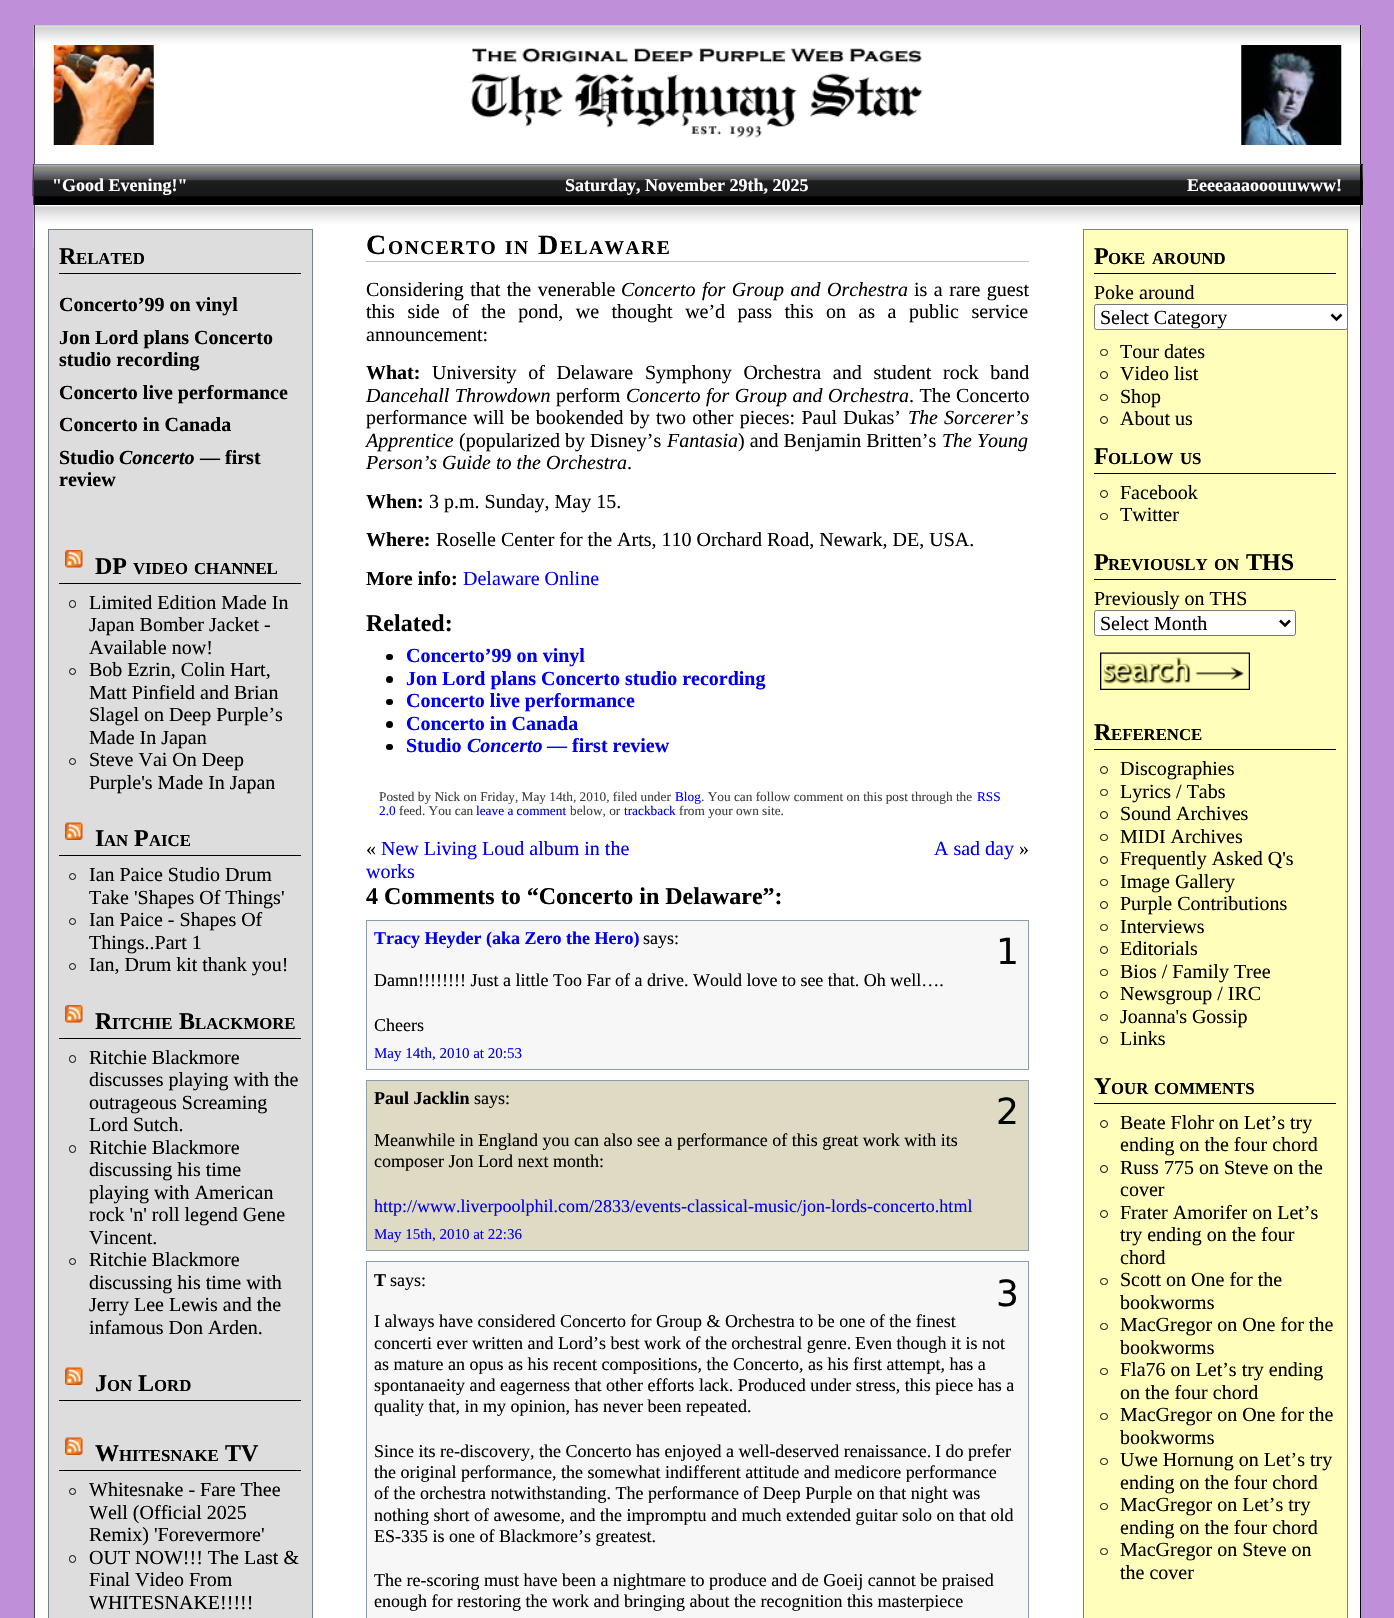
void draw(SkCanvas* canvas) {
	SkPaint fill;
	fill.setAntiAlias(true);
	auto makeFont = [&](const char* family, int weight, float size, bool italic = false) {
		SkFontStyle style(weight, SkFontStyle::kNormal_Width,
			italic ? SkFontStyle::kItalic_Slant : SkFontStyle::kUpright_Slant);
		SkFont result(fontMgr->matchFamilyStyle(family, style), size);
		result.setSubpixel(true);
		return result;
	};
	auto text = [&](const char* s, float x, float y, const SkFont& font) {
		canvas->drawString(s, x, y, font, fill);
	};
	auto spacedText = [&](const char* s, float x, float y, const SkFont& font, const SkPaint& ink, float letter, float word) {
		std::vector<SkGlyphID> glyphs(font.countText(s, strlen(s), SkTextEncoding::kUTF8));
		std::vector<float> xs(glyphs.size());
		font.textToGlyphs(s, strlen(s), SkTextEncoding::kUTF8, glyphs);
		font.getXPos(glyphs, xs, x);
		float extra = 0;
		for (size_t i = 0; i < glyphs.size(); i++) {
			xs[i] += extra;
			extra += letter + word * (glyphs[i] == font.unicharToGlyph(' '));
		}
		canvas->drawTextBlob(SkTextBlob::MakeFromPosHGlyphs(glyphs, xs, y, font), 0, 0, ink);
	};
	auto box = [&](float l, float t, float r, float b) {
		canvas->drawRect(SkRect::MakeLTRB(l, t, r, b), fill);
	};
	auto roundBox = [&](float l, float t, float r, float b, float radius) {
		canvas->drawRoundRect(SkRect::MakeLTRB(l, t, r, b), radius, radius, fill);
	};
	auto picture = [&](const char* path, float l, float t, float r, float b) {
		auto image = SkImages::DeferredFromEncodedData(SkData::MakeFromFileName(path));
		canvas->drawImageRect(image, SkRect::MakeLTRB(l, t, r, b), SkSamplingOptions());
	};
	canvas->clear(0xFFC08FDA);
	fill.setColor(0xFFFFFFFF);
	box(35, 26, 1360, 164);
	picture("image0.png", 33, 26, 1362, 68);
	fill.setColor(0xFFCCCCCC);
	box(34, 25, 1361, 26);
	fill.setColor(0xFF000000);
	box(1360, 25, 1361, 164);
	fill.setColor(0xFF444444);
	box(34, 25, 35, 164);
	picture("image1.png", 53, 45, 154, 145);
	picture("image2.png", 472, 47, 922, 63);
	picture("image3.png", 1241, 45, 1342, 145);
	picture("image4.png", 471, 73, 923, 138);
	fill.setColor(0xFF000000);
	box(34, 164, 1363, 205);
	picture("image5.png", 32, 165, 1363, 197);
	fill.setColor(0xFF798288);
	canvas->drawPath(SkPathBuilder().moveTo(32, 164).lineTo(1362, 164).lineTo(1360, 165).lineTo(34, 165).close().detach(), fill);
	fill.setColor(0xFF000000);
	canvas->drawPath(SkPathBuilder().moveTo(1362, 164).lineTo(1362, 205).lineTo(1360, 205).lineTo(1360, 165).close().detach(), fill);
	fill.setColor(0xFF444444);
	box(33, 164, 34, 205);
	fill.setColor(0xFFFFFFFF);
	box(35, 247, 1360, 1618);
	picture("image6.png", 33, 205, 1362, 248);
	fill.setColor(0xFF000000);
	box(1360, 205, 1361, 1618);
	fill.setColor(0xFF444444);
	box(34, 205, 35, 1618);
	fill.setColor(0xFFDDDDDD);
	canvas->drawRect(SkRect::MakeLTRB(48.5f, 229.5f, 312.5f, 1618.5f), fill);
	fill.setStyle(SkPaint::kStroke_Style);
	fill.setStrokeWidth(1);
	fill.setColor(0xFF798288);
	canvas->drawRect(SkRect::MakeLTRB(48.5f, 229.5f, 312.5f, 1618.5f), fill);
	fill.setStyle(SkPaint::kFill_Style);
	fill.setColor(0xFF000000);
	box(59, 273, 301, 274);
	box(59, 583, 301, 584);
	picture("image7.png", 65, 550, 83, 568);
	fill.setStyle(SkPaint::kStroke_Style);
	canvas->drawRoundRect(SkRect::MakeLTRB(69.5f, 600.5f, 75.5f, 607.5f), 3, 3, fill);
	canvas->drawCircle(72.5f, 671.5f, 3, fill);
	canvas->drawCircle(72.5f, 761.5f, 3, fill);
	fill.setStyle(SkPaint::kFill_Style);
	box(59, 855, 301, 856);
	picture("image8.png", 65, 822, 83, 840);
	fill.setStyle(SkPaint::kStroke_Style);
	canvas->drawCircle(72.5f, 876.5f, 3, fill);
	canvas->drawCircle(72.5f, 921.5f, 3, fill);
	canvas->drawCircle(72.5f, 966.5f, 3, fill);
	fill.setStyle(SkPaint::kFill_Style);
	box(59, 1038, 301, 1039);
	picture("image7.png", 65, 1005, 83, 1023);
	fill.setStyle(SkPaint::kStroke_Style);
	canvas->drawRoundRect(SkRect::MakeLTRB(69.5f, 1055.5f, 75.5f, 1062.5f), 3, 3, fill);
	canvas->drawRoundRect(SkRect::MakeLTRB(69.5f, 1145.5f, 75.5f, 1152.5f), 3, 3, fill);
	canvas->drawCircle(72.5f, 1261.5f, 3, fill);
	fill.setStyle(SkPaint::kFill_Style);
	box(59, 1400, 301, 1401);
	picture("image8.png", 65, 1367, 83, 1385);
	box(59, 1470, 301, 1471);
	picture("image8.png", 65, 1437, 83, 1455);
	fill.setStyle(SkPaint::kStroke_Style);
	canvas->drawCircle(72.5f, 1491.5f, 3, fill);
	canvas->drawRoundRect(SkRect::MakeLTRB(69.5f, 1555.5f, 75.5f, 1562.5f), 3, 3, fill);
	fill.setStyle(SkPaint::kFill_Style);
	fill.setColor(0xFFBFBFBF);
	box(366, 261, 1029, 262);
	fill.setColor(0xFF000000);
	roundBox(386, 654, 393, 660, 3);
	canvas->drawCircle(389.5f, 679.5f, 3.5f, fill);
	roundBox(386, 699, 393, 705, 3);
	canvas->drawCircle(389.5f, 724.5f, 3.5f, fill);
	roundBox(386, 744, 393, 750, 3);
	fill.setColor(0xFFF7F7F7);
	canvas->drawRect(SkRect::MakeLTRB(366.5f, 920.5f, 1028.5f, 1069.5f), fill);
	fill.setStyle(SkPaint::kStroke_Style);
	fill.setColor(0xFF8C9EAA);
	canvas->drawRect(SkRect::MakeLTRB(366.5f, 920.5f, 1028.5f, 1069.5f), fill);
	fill.setStyle(SkPaint::kFill_Style);
	fill.setColor(0xFFDFDAC3);
	canvas->drawRect(SkRect::MakeLTRB(366.5f, 1080.5f, 1028.5f, 1250.5f), fill);
	fill.setStyle(SkPaint::kStroke_Style);
	fill.setColor(0xFF8C9EAA);
	canvas->drawRect(SkRect::MakeLTRB(366.5f, 1080.5f, 1028.5f, 1250.5f), fill);
	fill.setStyle(SkPaint::kFill_Style);
	fill.setColor(0xFFF7F7F7);
	canvas->drawRect(SkRect::MakeLTRB(366.5f, 1261.5f, 1028.5f, 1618.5f), fill);
	fill.setStyle(SkPaint::kStroke_Style);
	fill.setColor(0xFF8C9EAA);
	canvas->drawRect(SkRect::MakeLTRB(366.5f, 1261.5f, 1028.5f, 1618.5f), fill);
	fill.setStyle(SkPaint::kFill_Style);
	fill.setColor(0xFFFFFFBB);
	canvas->drawRect(SkRect::MakeLTRB(1083.5f, 229.5f, 1347.5f, 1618.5f), fill);
	fill.setStyle(SkPaint::kStroke_Style);
	fill.setColor(0xFF798288);
	canvas->drawRect(SkRect::MakeLTRB(1083.5f, 229.5f, 1347.5f, 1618.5f), fill);
	fill.setStyle(SkPaint::kFill_Style);
	fill.setColor(0xFF000000);
	box(1094, 273, 1336, 274);
	fill.setColor(0xFFFFFFFF);
	canvas->drawRoundRect(SkRect::MakeLTRB(1094.5f, 304.5f, 1347.5f, 329.5f), 2, 2, fill);
	fill.setStyle(SkPaint::kStroke_Style);
	fill.setColor(0xFF767676);
	canvas->drawRoundRect(SkRect::MakeLTRB(1094.5f, 304.5f, 1347.5f, 329.5f), 2, 2, fill);
	fill.setStrokeWidth(2.5f);
	fill.setColor(0xFF000000);
	canvas->drawPath(SkPathBuilder().moveTo(1331.5f, 314.5f).lineTo(1336.5f, 319.5f).lineTo(1341.5f, 314.5f).detach(), fill);
	fill.setStrokeWidth(1);
	canvas->drawRoundRect(SkRect::MakeLTRB(1100.5f, 349.5f, 1107.5f, 355.5f), 3, 3, fill);
	canvas->drawCircle(1104, 375, 3.5f, fill);
	canvas->drawRoundRect(SkRect::MakeLTRB(1100.5f, 394.5f, 1107.5f, 400.5f), 3, 3, fill);
	canvas->drawCircle(1104, 420, 3.5f, fill);
	fill.setStyle(SkPaint::kFill_Style);
	box(1094, 473, 1336, 474);
	fill.setStyle(SkPaint::kStroke_Style);
	canvas->drawCircle(1104, 494, 3.5f, fill);
	canvas->drawRoundRect(SkRect::MakeLTRB(1100.5f, 513.5f, 1107.5f, 519.5f), 3, 3, fill);
	fill.setStyle(SkPaint::kFill_Style);
	box(1094, 579, 1336, 580);
	fill.setColor(0xFFFFFFFF);
	canvas->drawRoundRect(SkRect::MakeLTRB(1094.5f, 610.5f, 1295.5f, 635.5f), 2, 2, fill);
	fill.setStyle(SkPaint::kStroke_Style);
	fill.setColor(0xFF767676);
	canvas->drawRoundRect(SkRect::MakeLTRB(1094.5f, 610.5f, 1295.5f, 635.5f), 2, 2, fill);
	fill.setStrokeWidth(2.5f);
	fill.setColor(0xFF000000);
	canvas->drawPath(SkPathBuilder().moveTo(1280, 620.5f).lineTo(1285, 625.5f).lineTo(1290, 620.5f).detach(), fill);
	picture("image9.png", 1100, 652, 1250, 690);
	fill.setStyle(SkPaint::kFill_Style);
	box(1094, 749, 1336, 750);
	fill.setStyle(SkPaint::kStroke_Style);
	fill.setStrokeWidth(1);
	canvas->drawCircle(1104, 770, 3.5f, fill);
	canvas->drawRoundRect(SkRect::MakeLTRB(1100.5f, 789.5f, 1107.5f, 795.5f), 3, 3, fill);
	canvas->drawCircle(1104, 815, 3.5f, fill);
	canvas->drawRoundRect(SkRect::MakeLTRB(1100.5f, 834.5f, 1107.5f, 840.5f), 3, 3, fill);
	canvas->drawCircle(1104, 860, 3.5f, fill);
	canvas->drawRoundRect(SkRect::MakeLTRB(1100.5f, 879.5f, 1107.5f, 885.5f), 3, 3, fill);
	canvas->drawCircle(1104, 905, 3.5f, fill);
	canvas->drawRoundRect(SkRect::MakeLTRB(1100.5f, 924.5f, 1107.5f, 930.5f), 3, 3, fill);
	canvas->drawCircle(1104, 950, 3.5f, fill);
	canvas->drawRoundRect(SkRect::MakeLTRB(1100.5f, 969.5f, 1107.5f, 975.5f), 3, 3, fill);
	canvas->drawCircle(1104, 995, 3.5f, fill);
	canvas->drawRoundRect(SkRect::MakeLTRB(1100.5f, 1014.5f, 1107.5f, 1020.5f), 3, 3, fill);
	canvas->drawCircle(1104, 1040, 3.5f, fill);
	fill.setStyle(SkPaint::kFill_Style);
	box(1094, 1103, 1336, 1104);
	fill.setStyle(SkPaint::kStroke_Style);
	canvas->drawCircle(1104, 1124, 3.5f, fill);
	canvas->drawCircle(1104, 1169, 3.5f, fill);
	canvas->drawCircle(1104, 1214, 3.5f, fill);
	canvas->drawRoundRect(SkRect::MakeLTRB(1100.5f, 1278.5f, 1107.5f, 1284.5f), 3, 3, fill);
	canvas->drawRoundRect(SkRect::MakeLTRB(1100.5f, 1323.5f, 1107.5f, 1329.5f), 3, 3, fill);
	canvas->drawRoundRect(SkRect::MakeLTRB(1100.5f, 1368.5f, 1107.5f, 1374.5f), 3, 3, fill);
	canvas->drawRoundRect(SkRect::MakeLTRB(1100.5f, 1413.5f, 1107.5f, 1419.5f), 3, 3, fill);
	canvas->drawRoundRect(SkRect::MakeLTRB(1100.5f, 1458.5f, 1107.5f, 1464.5f), 3, 3, fill);
	canvas->drawRoundRect(SkRect::MakeLTRB(1100.5f, 1503.5f, 1107.5f, 1509.5f), 3, 3, fill);
	canvas->drawRoundRect(SkRect::MakeLTRB(1100.5f, 1548.5f, 1107.5f, 1554.5f), 3, 3, fill);
	auto font1 = makeFont("Liberation Serif", 700, 18);
	fill.setStyle(SkPaint::kFill_Style);
	fill.setColor(0xFFFFFFFF);
	text("\"Good Evening!\"", 52, 191, font1);
	text("Saturday, November 29th, 2025", 565, 191, font1);
	text("Eeeeaaaooouuwww!", 1187, 191, font1);
	auto font2 = makeFont("Liberation Serif", 700, 24);
	fill.setColor(0xFF000000);
	text("R", 59, 264, font2);
	auto font3 = makeFont("Liberation Serif", 700, 16.75f);
	text("ELATED", 76, 264, font3);
	auto font4 = makeFont("Liberation Serif", 700, 20);
	text("Concerto’99 on vinyl", 59, 311, font4);
	text("Jon Lord plans Concerto", 59, 344, font4);
	text("studio recording", 59, 366, font4);
	text("Concerto live performance", 59, 399, font4);
	text("Concerto in Canada", 59, 431, font4);
	text("Studio", 59, 464, font4);
	auto font5 = makeFont("Liberation Serif", 700, 20, true);
	text("Concerto", 119, 464, font5);
	text("— first", 200, 464, font4);
	text("review", 59, 486, font4);
	text("DP", 95, 574, font2);
	text("VIDEO", 133, 574, font3);
	text("CHANNEL", 194, 574, font3);
	auto font6 = makeFont("Liberation Serif", 400, 20);
	text("Limited Edition Made In", 89, 609, font6);
	text("Japan Bomber Jacket -", 89, 631, font6);
	text("Available now!", 89, 654, font6);
	text("Bob Ezrin, Colin Hart,", 89, 676, font6);
	text("Matt Pinfield and Brian", 89, 699, font6);
	text("Slagel on Deep Purple’s", 89, 721, font6);
	text("Made In Japan", 89, 744, font6);
	text("Steve Vai On Deep", 89, 766, font6);
	text("Purple's Made In Japan", 89, 789, font6);
	text("I", 95, 846, font2);
	text("AN", 104, 846, font3);
	text("P", 134, 846, font2);
	text("AICE", 149, 846, font3);
	text("Ian Paice Studio Drum", 89, 881, font6);
	text("Take 'Shapes Of Things'", 89, 904, font6);
	text("Ian Paice - Shapes Of", 89, 926, font6);
	text("Things..Part 1", 89, 949, font6);
	text("Ian, Drum kit thank you!", 89, 971, font6);
	text("R", 95, 1029, font2);
	text("ITCHIE", 112, 1029, font3);
	text("B", 179, 1029, font2);
	text("LACKMORE", 195, 1029, font3);
	text("Ritchie Blackmore", 89, 1064, font6);
	text("discusses playing with the", 89, 1086, font6);
	text("outrageous Screaming", 89, 1109, font6);
	text("Lord Sutch.", 89, 1131, font6);
	text("Ritchie Blackmore", 89, 1154, font6);
	text("discussing his time", 89, 1176, font6);
	text("playing with American", 89, 1199, font6);
	text("rock 'n' roll legend Gene", 89, 1221, font6);
	text("Vincent.", 89, 1244, font6);
	text("Ritchie Blackmore", 89, 1266, font6);
	text("discussing his time with", 89, 1289, font6);
	text("Jerry Lee Lewis and the", 89, 1311, font6);
	text("infamous Don Arden.", 89, 1334, font6);
	text("J", 95, 1391, font2);
	text("ON", 107, 1391, font3);
	text("L", 138, 1391, font2);
	text("ORD", 154, 1391, font3);
	text("W", 95, 1461, font2);
	text("HITESNAKE", 119, 1461, font3);
	text("TV", 225, 1461, font2);
	text("Whitesnake - Fare Thee", 89, 1496, font6);
	text("Well (Official 2025", 89, 1519, font6);
	text("Remix) 'Forevermore'", 89, 1541, font6);
	text("OUT NOW!!! The Last &", 89, 1564, font6);
	text("Final Video From", 89, 1586, font6);
	text("WHITESNAKE!!!!!", 89, 1609, font6);
	auto font7 = makeFont("Liberation Serif", 700, 28);
	spacedText("C", 366, 254, font7, fill, 1.5f, 0);
	auto font8 = makeFont("Liberation Serif", 700, 19.5f);
	spacedText("ONCERTO", 388, 254, font8, fill, 1.5f, 0);
	spacedText("IN", 505, 254, font8, fill, 1.5f, 0);
	spacedText("D", 538, 254, font7, fill, 1.5f, 0);
	spacedText("ELAWARE", 560, 254, font8, fill, 1.5f, 0);
	spacedText("Considering that the venerable", 366, 296, font6, fill, 0, 1.5f);
	auto font9 = makeFont("Liberation Serif", 400, 20, true);
	spacedText("Concerto for Group and Orchestra", 621, 296, font9, fill, 0, 1.5f);
	spacedText("is a rare guest", 914, 296, font6, fill, 0, 1.5f);
	spacedText("this side of the pond, we thought we’d pass this on as a public service", 366, 318, font6, fill, 0, 7.5f);
	text("announcement:", 366, 341, font6);
	text("What:", 366, 379, font4);
	spacedText("University of Delaware Symphony Orchestra and student rock band", 432, 379, font6, fill, 0, 6.75f);
	spacedText("Dancehall Throwdown", 366, 402, font9, fill, 0, 0.5f);
	text("perform", 556, 402, font6);
	spacedText("Concerto for Group and Orchestra", 626, 402, font9, fill, 0, 0.5f);
	spacedText(". The Concerto", 909, 402, font6, fill, 0, 0.5f);
	spacedText("performance will be bookended by two other pieces: Paul Dukas’", 366, 424, font6, fill, 0, 1.25f);
	spacedText("The Sorcerer’s", 908, 424, font9, fill, 0, 1);
	text("Apprentice", 366, 447, font9);
	text("(popularized by Disney’s", 459, 447, font6);
	text("Fantasia", 667, 447, font9);
	text(") and Benjamin Britten’s", 738, 447, font6);
	text("The Young", 942, 447, font9);
	text("Person’s Guide to the Orchestra", 366, 469, font9);
	text(".", 627, 469, font6);
	text("When:", 366, 508, font4);
	text("3 p.m. Sunday, May 15.", 429, 508, font6);
	text("Where:", 366, 546, font4);
	text("Roselle Center for the Arts, 110 Orchard Road, Newark, DE, USA.", 436, 546, font6);
	text("More info:", 366, 585, font4);
	fill.setColor(0xFF0000EE);
	text("Delaware Online", 463, 585, font6);
	fill.setColor(0xFF000000);
	text("Related:", 366, 631, font2);
	fill.setColor(0xFF0000EE);
	text("Concerto’99 on vinyl", 406, 662, font4);
	text("Jon Lord plans Concerto studio recording", 406, 685, font4);
	text("Concerto live performance", 406, 707, font4);
	text("Concerto in Canada", 406, 730, font4);
	text("Studio", 406, 752, font4);
	text("Concerto", 467, 752, font5);
	text("— first review", 547, 752, font4);
	auto font10 = makeFont("Liberation Serif", 400, 13.3f);
	fill.setColor(0xFF3F3F3F);
	text("Posted by Nick on Friday, May 14th, 2010, filed under", 379, 801, font10);
	fill.setColor(0xFF0000EE);
	text("Blog", 675, 801, font10);
	fill.setColor(0xFF3F3F3F);
	text(". You can follow comment on this post through the", 701, 801, font10);
	fill.setColor(0xFF0000EE);
	text("RSS", 977, 801, font10);
	text("2.0", 379, 815, font10);
	fill.setColor(0xFF3F3F3F);
	text("feed. You can", 399, 815, font10);
	fill.setColor(0xFF0000EE);
	text("leave a comment", 476, 815, font10);
	fill.setColor(0xFF3F3F3F);
	text("below, or", 570, 815, font10);
	fill.setColor(0xFF0000EE);
	text("trackback", 624, 815, font10);
	fill.setColor(0xFF3F3F3F);
	text("from your own site.", 679, 815, font10);
	fill.setColor(0xFF000000);
	text("«", 366, 855, font6);
	fill.setColor(0xFF0000EE);
	text("New Living Loud album in the", 381, 855, font6);
	text("works", 366, 878, font6);
	text("A sad day", 934, 855, font6);
	fill.setColor(0xFF000000);
	text("»", 1019, 855, font6);
	text("4 Comments to “Concerto in Delaware”:", 366, 904, font2);
	fill.setColor(0xFF0000EE);
	text("Tracy Heyder (aka Zero the Hero)", 374, 944, font1);
	auto font11 = makeFont("Liberation Serif", 400, 18);
	fill.setColor(0xFF000000);
	text("says:", 643, 944, font11);
	auto font12 = makeFont("DejaVu Sans", 400, 36);
	text("1", 996, 964, font12);
	text("Damn!!!!!!!! Just a little Too Far of a drive. Would love to see that. Oh well….", 374, 986, font11);
	text("Cheers", 374, 1031, font11);
	auto font13 = makeFont("Liberation Serif", 400, 15);
	fill.setColor(0xFF0000EE);
	text("May 14th, 2010 at 20:53", 374, 1058, font13);
	fill.setColor(0xFF000000);
	text("Paul Jacklin", 374, 1104, font1);
	text("says:", 474, 1104, font11);
	text("2", 996, 1124, font12);
	text("Meanwhile in England you can also see a performance of this great work with its", 374, 1146, font11);
	text("composer Jon Lord next month:", 374, 1167, font11);
	fill.setColor(0xFF0000EE);
	text("http://www.liverpoolphil.com/2833/events-classical-music/jon-lords-concerto.html", 374, 1212, font11);
	text("May 15th, 2010 at 22:36", 374, 1239, font13);
	fill.setColor(0xFF000000);
	text("T", 374, 1286, font1);
	text("says:", 390, 1286, font11);
	text("3", 996, 1306, font12);
	text("I always have considered Concerto for Group & Orchestra to be one of the finest", 374, 1327, font11);
	text("concerti ever written and Lord’s best work of the orchestral genre.", 374, 1349, font11);
	text("Even though it is not", 855, 1349, font11);
	text("as mature an opus as his recent compositions, the Concerto, as his first attempt, has a", 374, 1370, font11);
	text("spontanaeity and eagerness that other efforts lack. Produced under stress, this piece has a", 374, 1391, font11);
	text("quality that, in my opinion, has never been repeated.", 374, 1412, font11);
	text("Since its re-discovery, the Concerto has enjoyed a well-deserved renaissance.", 374, 1457, font11);
	text("I do prefer", 935, 1457, font11);
	text("the original performance, the somewhat indifferent attitude and medicore performance", 374, 1478, font11);
	text("of the orchestra notwithstanding. The performance of Deep Purple on that night was", 374, 1499, font11);
	text("nothing short of awesome, and the impromptu and much extended guitar solo on that old", 374, 1521, font11);
	text("ES-335 is one of Blackmore’s greatest.", 374, 1542, font11);
	text("The re-scoring must have been a nightmare to produce and de Goeij cannot be praised", 374, 1586, font11);
	text("enough for restoring the work and bringing about the recognition this masterpiece", 374, 1607, font11);
	text("P", 1094, 264, font2);
	text("OKE", 1108, 264, font3);
	text("AROUND", 1152, 264, font3);
	text("Poke around", 1094, 299, font6);
	text("Select Category", 1100, 324, font6);
	text("Tour dates", 1120, 358, font6);
	text("Video list", 1120, 380, font6);
	text("Shop", 1120, 403, font6);
	text("About us", 1120, 425, font6);
	text("F", 1094, 464, font2);
	text("OLLOW", 1108, 464, font3);
	text("US", 1180, 464, font3);
	text("Facebook", 1120, 499, font6);
	text("Twitter", 1120, 521, font6);
	text("P", 1094, 570, font2);
	text("REVIOUSLY", 1108, 570, font3);
	text("ON", 1214, 570, font3);
	text("THS", 1246, 570, font2);
	text("Previously on THS", 1094, 605, font6);
	text("Select Month", 1100, 630, font6);
	text("R", 1094, 740, font2);
	text("EFERENCE", 1111, 740, font3);
	text("Discographies", 1120, 775, font6);
	text("Lyrics / Tabs", 1120, 798, font6);
	text("Sound Archives", 1120, 820, font6);
	text("MIDI Archives", 1120, 843, font6);
	text("Frequently Asked Q's", 1120, 865, font6);
	text("Image Gallery", 1120, 888, font6);
	text("Purple Contributions", 1120, 910, font6);
	text("Interviews", 1120, 933, font6);
	text("Editorials", 1120, 955, font6);
	text("Bios / Family Tree", 1120, 978, font6);
	text("Newsgroup / IRC", 1120, 1000, font6);
	text("Joanna's Gossip", 1120, 1023, font6);
	text("Links", 1120, 1045, font6);
	text("Y", 1094, 1094, font2);
	text("OUR", 1111, 1094, font3);
	text("COMMENTS", 1154, 1094, font3);
	text("Beate Flohr on Let’s try", 1120, 1129, font6);
	text("ending on the four chord", 1120, 1151, font6);
	text("Russ 775 on Steve on the", 1120, 1174, font6);
	text("cover", 1120, 1196, font6);
	text("Frater Amorifer on Let’s", 1120, 1219, font6);
	text("try ending on the four", 1120, 1241, font6);
	text("chord", 1120, 1264, font6);
	text("Scott on One for the", 1120, 1286, font6);
	text("bookworms", 1120, 1309, font6);
	text("MacGregor on One for the", 1120, 1331, font6);
	text("bookworms", 1120, 1354, font6);
	text("Fla76 on Let’s try ending", 1120, 1376, font6);
	text("on the four chord", 1120, 1399, font6);
	text("MacGregor on One for the", 1120, 1421, font6);
	text("bookworms", 1120, 1444, font6);
	text("Uwe Hornung on Let’s try", 1120, 1466, font6);
	text("ending on the four chord", 1120, 1489, font6);
	text("MacGregor on Let’s try", 1120, 1511, font6);
	text("ending on the four chord", 1120, 1534, font6);
	text("MacGregor on Steve on", 1120, 1556, font6);
	text("the cover", 1120, 1579, font6);
}
